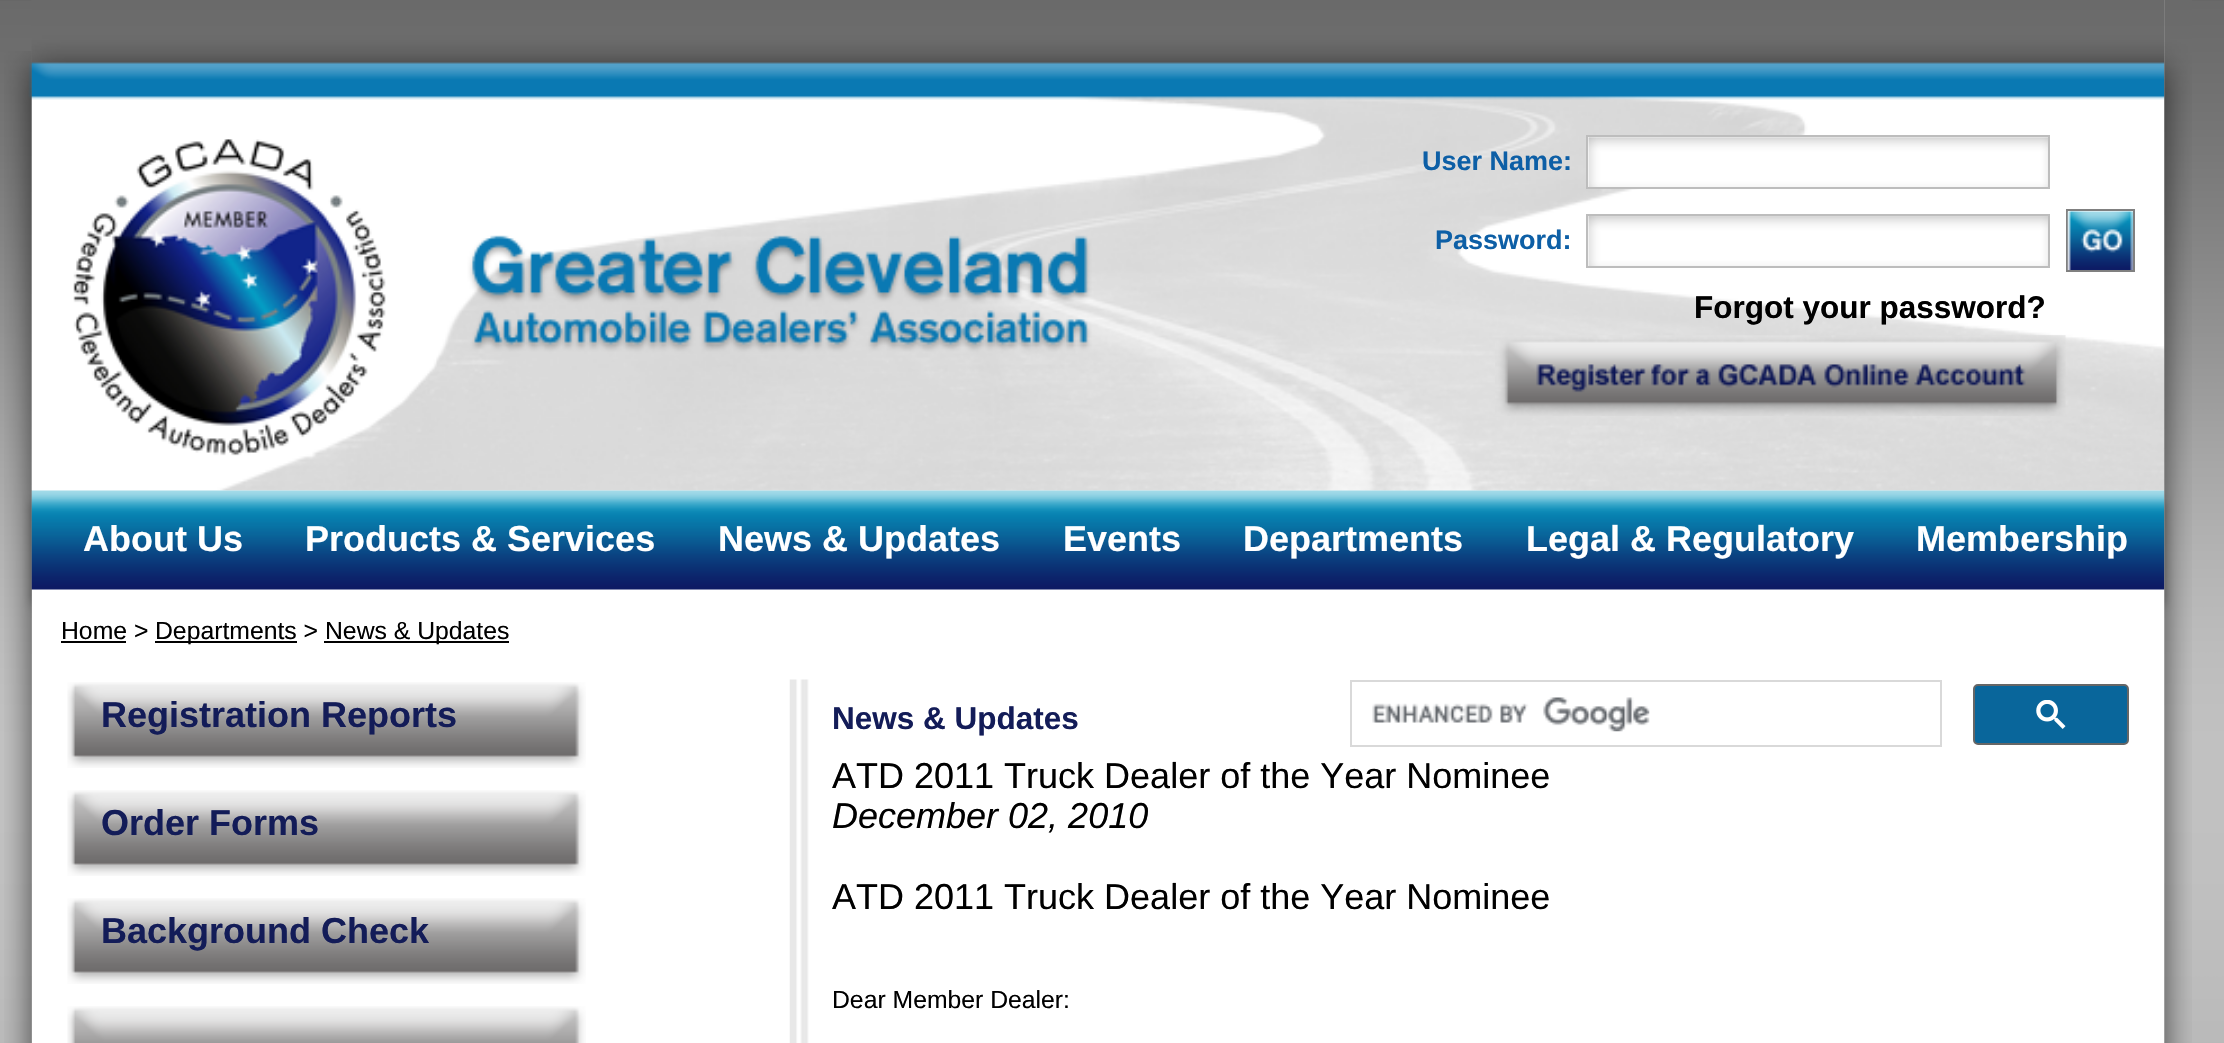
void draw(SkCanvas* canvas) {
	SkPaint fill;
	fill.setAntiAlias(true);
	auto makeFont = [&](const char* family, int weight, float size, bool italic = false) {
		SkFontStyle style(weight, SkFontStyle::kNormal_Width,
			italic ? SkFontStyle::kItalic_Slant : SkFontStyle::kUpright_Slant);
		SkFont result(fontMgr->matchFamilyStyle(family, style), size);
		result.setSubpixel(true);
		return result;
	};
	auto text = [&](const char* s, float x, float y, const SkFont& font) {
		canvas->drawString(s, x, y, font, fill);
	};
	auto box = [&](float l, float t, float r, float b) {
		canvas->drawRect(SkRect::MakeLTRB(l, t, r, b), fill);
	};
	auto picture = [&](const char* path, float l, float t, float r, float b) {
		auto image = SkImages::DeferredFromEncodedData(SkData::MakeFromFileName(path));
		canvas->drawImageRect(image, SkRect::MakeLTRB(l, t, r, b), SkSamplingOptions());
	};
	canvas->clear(0xFFFFFFFF);
	picture("image0.png", 0, 0, 2224, 1043);
	picture("image1.png", 4, 51, 32, 1043);
	fill.setColor(0xFFFFFFFF);
	box(32, 0, 2165, 1043);
	picture("image3.png", 31, 0, 2165, 491);
	picture("image8.png", 31, 490, 2165, 590);
	picture("image2.png", 31, 62, 32, 1043);
	box(1588, 137, 1803, 187);
	picture("image4.png", 1588, 137, 2048, 187);
	fill.setStyle(SkPaint::kStroke_Style);
	fill.setStrokeWidth(2);
	fill.setColor(0xFFBDBDBD);
	canvas->drawRect(SkRect::MakeLTRB(1587, 136, 2049, 188), fill);
	picture("image5.png", 1588, 216, 2048, 266);
	canvas->drawRect(SkRect::MakeLTRB(1587, 215, 2049, 267), fill);
	fill.setColor(0xFF808080);
	canvas->drawRect(SkRect::MakeLTRB(2067, 210, 2134, 271), fill);
	picture("image6.png", 2067, 211, 2133, 270);
	picture("image7.png", 1495, 335, 2066, 416);
	fill.setStyle(SkPaint::kFill_Style);
	fill.setColor(0xFF000000);
	box(61, 641, 126, 643);
	box(155, 641, 297, 643);
	box(324, 641, 509, 643);
	picture("image9.png", 67, 682, 586, 768);
	picture("image9.png", 67, 790, 586, 876);
	picture("image9.png", 67, 898, 586, 984);
	picture("image10.png", 67, 1006, 586, 1043);
	picture("image11.png", 789, 679, 809, 1043);
	fill.setStyle(SkPaint::kStroke_Style);
	fill.setColor(0xFFD9D9D9);
	canvas->drawRect(SkRect::MakeLTRB(1351, 681, 1941, 746), fill);
	picture("image12.png", 1372, 697, 1650, 732);
	fill.setStyle(SkPaint::kFill_Style);
	fill.setColor(0xFF09669B);
	canvas->drawRoundRect(SkRect::MakeLTRB(1974, 685, 2128, 744), 4, 4, fill);
	fill.setStyle(SkPaint::kStroke_Style);
	fill.setColor(0xFF666666);
	canvas->drawRoundRect(SkRect::MakeLTRB(1974, 685, 2128, 744), 4, 4, fill);
	picture("image13.png", 2036, 700, 2066, 729);
	picture("image14.png", 2164, 0, 2192, 1043);
	picture("image15.png", 2164, 0, 2165, 1043);
	auto font1 = makeFont("Liberation Sans", 700, 27);
	fill.setStyle(SkPaint::kFill_Style);
	fill.setColor(0xFF0D5FA6);
	text("User Name:", 1422, 170, font1);
	text("Password:", 1435, 249, font1);
	auto font2 = makeFont("Liberation Sans", 700, 31.5f);
	fill.setColor(0xFF000000);
	text("Forgot your password?", 1694, 318, font2);
	auto font3 = makeFont("Liberation Sans", 700, 36);
	fill.setColor(0xFFFFFFFF);
	text("About Us", 83, 551, font3);
	text("Products & Services", 305, 551, font3);
	text("News & Updates", 718, 551, font3);
	text("Events", 1063, 551, font3);
	text("Departments", 1243, 551, font3);
	text("Legal & Regulatory", 1526, 551, font3);
	text("Membership", 1916, 551, font3);
	auto font4 = makeFont("Liberation Sans", 400, 24.75f);
	fill.setColor(0xFF000000);
	text("Home >", 61, 639, font4);
	text("Departments >", 155, 639, font4);
	text("News & Updates", 325, 639, font4);
	fill.setColor(0xFF131C58);
	text("Registration Reports", 101, 727, font3);
	text("Order Forms", 101, 835, font3);
	text("Background Check", 101, 943, font3);
	text("News & Updates", 832, 729, font2);
	auto font5 = makeFont("Liberation Sans", 400, 36);
	fill.setColor(0xFF000000);
	text("ATD 2011 Truck Dealer of the Year Nominee", 832, 788, font5);
	auto font6 = makeFont("Liberation Sans", 400, 36, true);
	text("December 02, 2010", 832, 828, font6);
	text("ATD 2011 Truck Dealer of the Year Nominee", 832, 909, font5);
	text("Dear Member Dealer:", 832, 1008, font4);
}
